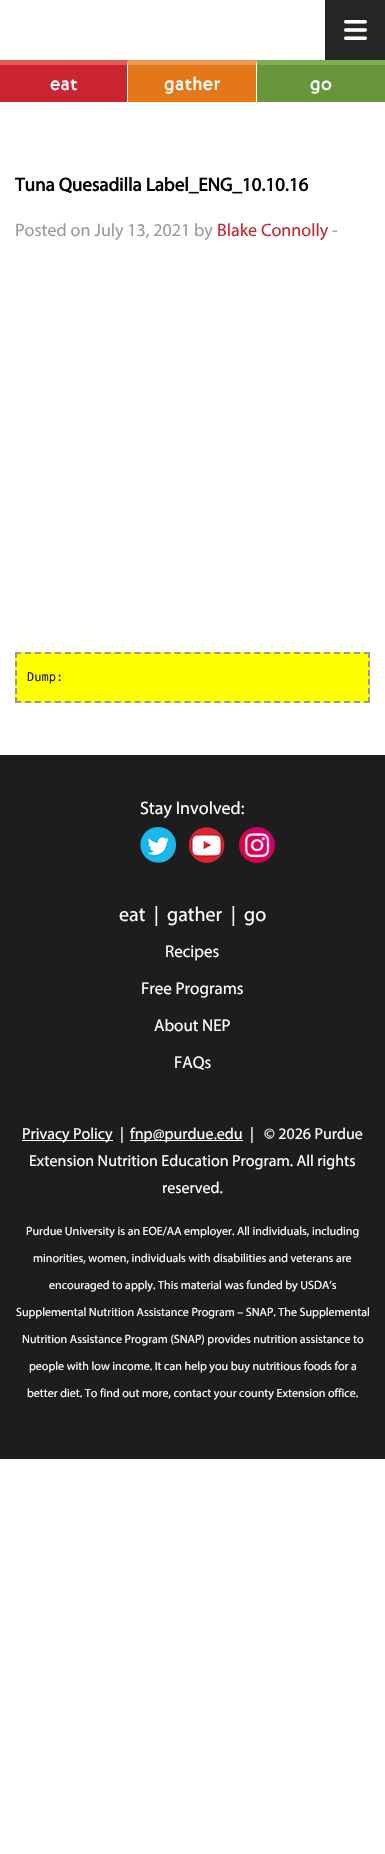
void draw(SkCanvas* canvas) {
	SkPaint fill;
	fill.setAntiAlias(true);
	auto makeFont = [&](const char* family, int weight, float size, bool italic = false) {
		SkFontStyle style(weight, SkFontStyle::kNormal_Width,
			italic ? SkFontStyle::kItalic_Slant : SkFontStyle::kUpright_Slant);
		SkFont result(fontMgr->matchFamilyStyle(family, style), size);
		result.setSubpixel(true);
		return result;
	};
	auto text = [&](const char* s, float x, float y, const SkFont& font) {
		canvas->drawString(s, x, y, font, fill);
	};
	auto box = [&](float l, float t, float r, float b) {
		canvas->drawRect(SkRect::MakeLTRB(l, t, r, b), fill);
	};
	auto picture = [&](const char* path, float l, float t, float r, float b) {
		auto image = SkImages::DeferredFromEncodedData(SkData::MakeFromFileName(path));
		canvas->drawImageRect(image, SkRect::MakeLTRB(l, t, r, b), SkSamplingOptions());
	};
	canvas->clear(0xFFFFFFFF);
	fill.setColor(0xFF252525);
	box(325, 0, 385, 60);
	picture("image0.png", 344, 20, 367, 40);
	fill.setColor(0xFFC92430);
	box(0, 60, 128, 102);
	fill.setColor(0xFFE25955);
	canvas->drawPath(SkPathBuilder().moveTo(0, 60).lineTo(128, 60).lineTo(127, 65).lineTo(0, 65).close().detach(), fill);
	fill.setColor(0xFFFFFFFF);
	canvas->drawPath(SkPathBuilder().moveTo(128, 60).lineTo(128, 102).lineTo(127, 102).lineTo(127, 65).close().detach(), fill);
	fill.setColor(0xFFE47819);
	box(128, 60, 257, 102);
	fill.setColor(0xFFEB9A53);
	canvas->drawPath(SkPathBuilder().moveTo(128, 60).lineTo(257, 60).lineTo(256, 65).lineTo(128, 65).close().detach(), fill);
	fill.setColor(0xFFFFFFFF);
	canvas->drawPath(SkPathBuilder().moveTo(257, 60).lineTo(257, 102).lineTo(256, 102).lineTo(256, 65).close().detach(), fill);
	fill.setColor(0xFF669639);
	box(257, 65, 385, 102);
	fill.setColor(0xFF7FAD53);
	box(257, 60, 385, 65);
	fill.setColor(0xFFFFFF00);
	box(15, 652, 370, 703);
	fill.setStyle(SkPaint::kStroke_Style);
	fill.setStrokeWidth(2);
	fill.setColor(0xFF999999);
	fill.setPathEffect(SkDashPathEffect::Make({{6, 3.97f}}, 0));
	canvas->drawPath(SkPathBuilder().moveTo(15, 653).lineTo(370, 653).detach(), fill);
	fill.setPathEffect(nullptr);
	fill.setPathEffect(SkDashPathEffect::Make({{6, 3}}, 0));
	canvas->drawPath(SkPathBuilder().moveTo(369, 652).lineTo(369, 703).detach(), fill);
	fill.setPathEffect(nullptr);
	fill.setPathEffect(SkDashPathEffect::Make({{6, 3.97f}}, 0));
	canvas->drawPath(SkPathBuilder().moveTo(15, 702).lineTo(370, 702).detach(), fill);
	fill.setPathEffect(nullptr);
	fill.setPathEffect(SkDashPathEffect::Make({{6, 3}}, 0));
	canvas->drawPath(SkPathBuilder().moveTo(16, 652).lineTo(16, 703).detach(), fill);
	fill.setPathEffect(nullptr);
	fill.setStyle(SkPaint::kFill_Style);
	fill.setColor(0xFF1D1D1D);
	box(0, 755, 385, 1459);
	picture("image1.png", 140, 827, 176, 863);
	picture("image2.png", 189, 827, 225, 863);
	picture("image3.png", 239, 827, 275, 863);
	fill.setColor(0xFFFFFFFF);
	box(22, 1140, 113, 1141);
	box(130, 1140, 243, 1141);
	auto font1 = makeFont("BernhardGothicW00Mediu", 400, 20);
	text("eat", 50, 90, font1);
	text("gather", 164, 90, font1);
	text("go", 310, 90, font1);
	auto font2 = makeFont("Myriad", 700, 19);
	fill.setColor(0xFF000000);
	text("Tuna Quesadilla Label_ENG_10.10.16", 15, 191, font2);
	auto font3 = makeFont("Myriad", 400, 18);
	fill.setColor(0xFF999999);
	text("Posted on July 13, 2021 by", 15, 236, font3);
	fill.setColor(0xFFC92430);
	text("Blake Connolly", 217, 236, font3);
	fill.setColor(0xFF999999);
	text("-", 332, 236, font3);
	auto font4 = makeFont("DejaVu Sans Mono", 400, 12);
	fill.setColor(0xFF222222);
	text("Dump:", 27, 681, font4);
	fill.setColor(0xFFFFFFFF);
	text("Stay Involved:", 140, 814, font3);
	auto font5 = makeFont("Myriad", 400, 20);
	text("eat", 119, 921, font5);
	text("|", 154, 921, font5);
	text("gather", 167, 921, font5);
	text("|", 231, 921, font5);
	text("go", 244, 921, font5);
	auto font6 = makeFont("Myriad", 400, 17);
	text("Recipes", 165, 957, font6);
	text("Free Programs", 141, 994, font6);
	text("About NEP", 154, 1031, font6);
	text("FAQs", 174, 1068, font6);
	auto font7 = makeFont("Myriad", 400, 16);
	text("Privacy Policy", 22, 1139, font7);
	text("|", 120, 1139, font7);
	text("fnp@purdue.edu", 130, 1139, font7);
	text("|", 250, 1139, font7);
	text("© 2026 Purdue", 264, 1139, font7);
	text("Extension Nutrition Education Program. All rights", 29, 1166, font7);
	text("reserved.", 162, 1193, font7);
	auto font8 = makeFont("Myriad", 400, 12);
	text("Purdue University is an EOE/AA employer. All individuals, including", 26, 1235, font8);
	text("minorities, women, individuals with disabilities and veterans are", 33, 1262, font8);
	text("encouraged to apply. This material was funded by USDA’s", 49, 1289, font8);
	text("Supplemental Nutrition Assistance Program – SNAP. The Supplemental", 16, 1316, font8);
	text("Nutrition Assistance Program (SNAP) provides nutrition assistance to", 22, 1343, font8);
	text("people with low income. It can help you buy nutritious foods for a", 29, 1370, font8);
	text("better diet. To find out more, contact your county Extension office.", 27, 1397, font8);
}
